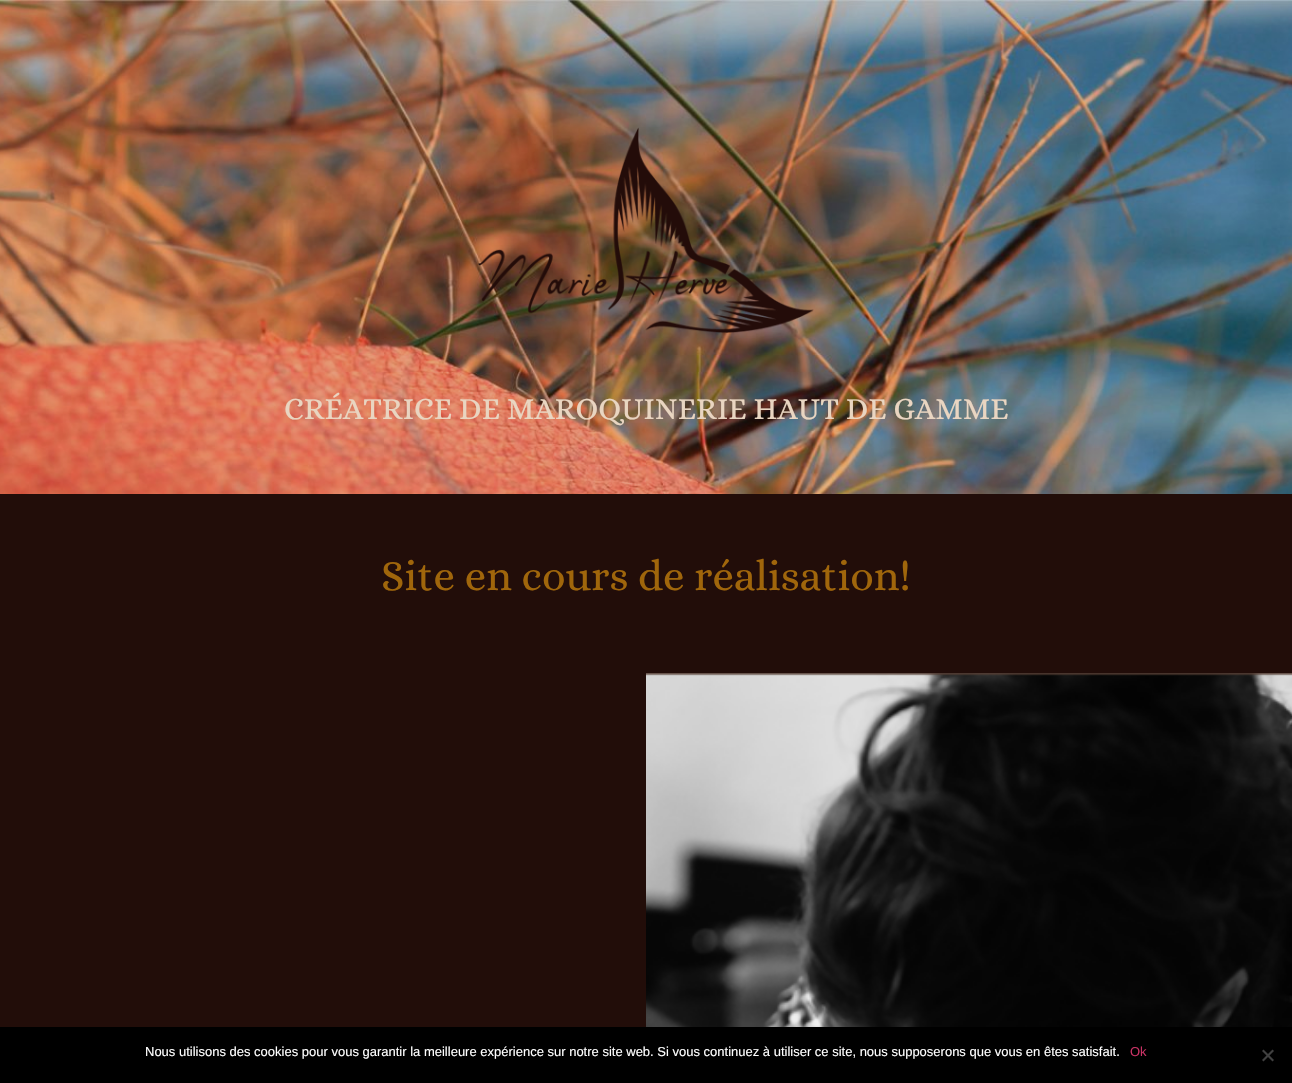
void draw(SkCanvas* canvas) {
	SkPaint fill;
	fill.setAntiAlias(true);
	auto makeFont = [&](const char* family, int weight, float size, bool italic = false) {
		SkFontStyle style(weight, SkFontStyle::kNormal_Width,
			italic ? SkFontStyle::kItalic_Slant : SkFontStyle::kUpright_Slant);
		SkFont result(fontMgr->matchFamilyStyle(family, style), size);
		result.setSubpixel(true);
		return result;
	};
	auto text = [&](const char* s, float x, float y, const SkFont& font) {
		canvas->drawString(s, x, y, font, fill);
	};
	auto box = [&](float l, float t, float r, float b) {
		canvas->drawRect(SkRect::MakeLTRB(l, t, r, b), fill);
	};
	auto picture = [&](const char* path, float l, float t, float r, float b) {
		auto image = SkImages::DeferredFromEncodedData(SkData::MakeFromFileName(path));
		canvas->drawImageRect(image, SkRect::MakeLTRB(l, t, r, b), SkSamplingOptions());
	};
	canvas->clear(0xFF220D09);
	picture("image0.png", 0, 0, 1292, 494);
	picture("image1.png", 478, 127, 814, 333);
	picture("image2.png", 646, 673, 1292, 1027);
	fill.setColor(0xFF000000);
	box(0, 1027, 1292, 1083);
	fill.setColor(0xFF404040);
	canvas->drawPath(SkPathBuilder().moveTo(1272.5f, 1049.5f).lineTo(1274, 1051).lineTo(1263.5f, 1061.5f).lineTo(1262, 1060).close().detach(), fill);
	canvas->drawPath(SkPathBuilder().moveTo(1262, 1051).lineTo(1263.5f, 1049.5f).lineTo(1274, 1060).lineTo(1272.5f, 1061.5f).close().detach(), fill);
	auto font1 = makeFont("Alice", 400, 31);
	fill.setColor(0xFFE9D5C1);
	text("CRÉATRICE DE MAROQUINERIE HAUT DE GAMME", 284, 419, font1);
	auto font2 = makeFont("Alice", 400, 43);
	fill.setColor(0xFFA0660B);
	text("Site en cours de réalisation!", 381, 590, font2);
	auto font3 = makeFont("Liberation Sans", 400, 13);
	fill.setColor(0xFFFFFFFF);
	text("Nous utilisons des cookies pour vous garantir la meilleure expérience sur notre site web. Si vous continuez à utiliser ce site, nous supposerons que vous en êtes satisfait.", 145, 1056, font3);
	fill.setColor(0xFFCC3366);
	text("Ok", 1130, 1056, font3);
}
